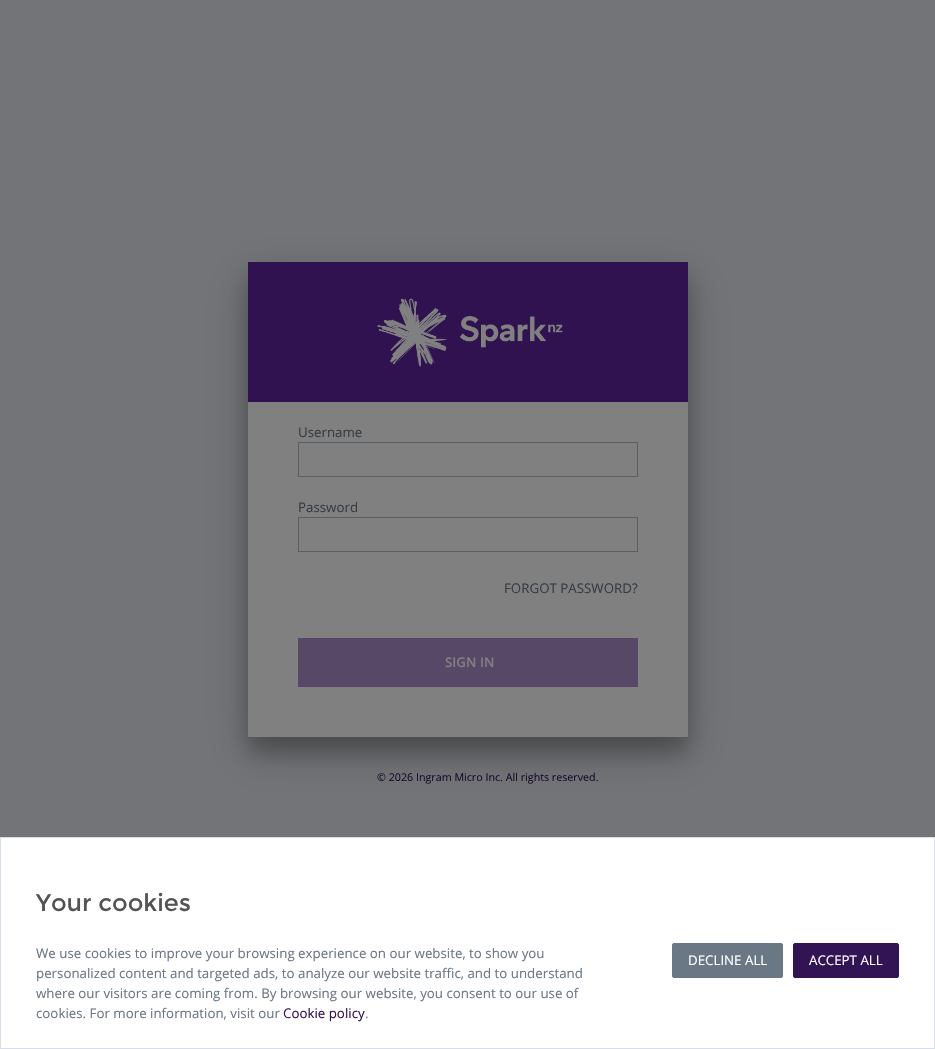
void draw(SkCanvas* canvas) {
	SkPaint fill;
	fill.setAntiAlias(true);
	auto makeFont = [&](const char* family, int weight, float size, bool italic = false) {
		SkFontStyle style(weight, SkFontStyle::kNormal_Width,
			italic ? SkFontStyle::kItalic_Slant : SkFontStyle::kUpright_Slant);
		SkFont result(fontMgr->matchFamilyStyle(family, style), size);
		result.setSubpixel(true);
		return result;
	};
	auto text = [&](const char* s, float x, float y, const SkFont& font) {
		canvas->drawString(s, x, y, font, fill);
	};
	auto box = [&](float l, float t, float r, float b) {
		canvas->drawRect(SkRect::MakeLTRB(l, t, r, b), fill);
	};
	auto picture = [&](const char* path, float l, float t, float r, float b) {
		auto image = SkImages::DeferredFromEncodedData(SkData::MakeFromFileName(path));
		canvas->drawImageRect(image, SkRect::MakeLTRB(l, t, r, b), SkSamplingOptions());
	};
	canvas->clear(0xFF727477);
	fill.setColor(0x33000000);
	fill.setMaskFilter(SkMaskFilter::MakeBlur(kNormal_SkBlurStyle, 9));
	canvas->drawRect(SkRect::MakeLTRB(248, 278, 688, 753), fill);
	fill.setMaskFilter(nullptr);
	fill.setColor(0x38000000);
	fill.setMaskFilter(SkMaskFilter::MakeBlur(kNormal_SkBlurStyle, 20));
	canvas->drawRect(SkRect::MakeLTRB(248, 277, 688, 752), fill);
	fill.setMaskFilter(nullptr);
	fill.setColor(0xFF808080);
	box(248, 402, 688, 737);
	fill.setColor(0xFF301250);
	box(248, 262, 688, 402);
	picture("image0.png", 377, 298, 563, 367);
	fill.setStyle(SkPaint::kStroke_Style);
	fill.setStrokeWidth(1);
	fill.setColor(0xFF585F67);
	canvas->drawRect(SkRect::MakeLTRB(298.5f, 442.5f, 637.5f, 476.5f), fill);
	canvas->drawRect(SkRect::MakeLTRB(298.5f, 517.5f, 637.5f, 551.5f), fill);
	fill.setStyle(SkPaint::kFill_Style);
	fill.setColor(0xFF574867);
	box(298, 638, 638, 687);
	fill.setColor(0xFFFFFFFF);
	canvas->drawRect(SkRect::MakeLTRB(0.5f, 837.5f, 934.5f, 1048.5f), fill);
	fill.setStyle(SkPaint::kStroke_Style);
	fill.setColor(0xFFD7DEE7);
	canvas->drawRect(SkRect::MakeLTRB(0.5f, 837.5f, 934.5f, 1048.5f), fill);
	fill.setStyle(SkPaint::kFill_Style);
	fill.setColor(0xFF6A7785);
	canvas->drawRoundRect(SkRect::MakeLTRB(672.5f, 943.5f, 782.5f, 977.5f), 1.5f, 1.5f, fill);
	fill.setStyle(SkPaint::kStroke_Style);
	canvas->drawRoundRect(SkRect::MakeLTRB(672.5f, 943.5f, 782.5f, 977.5f), 1.5f, 1.5f, fill);
	fill.setStyle(SkPaint::kFill_Style);
	fill.setColor(0xFF321353);
	canvas->drawRoundRect(SkRect::MakeLTRB(793.5f, 943.5f, 898.5f, 977.5f), 1.5f, 1.5f, fill);
	fill.setStyle(SkPaint::kStroke_Style);
	canvas->drawRoundRect(SkRect::MakeLTRB(793.5f, 943.5f, 898.5f, 977.5f), 1.5f, 1.5f, fill);
	auto font1 = makeFont("Open Sans", 400, 13.3f);
	fill.setStyle(SkPaint::kFill_Style);
	fill.setColor(0xFF353C43);
	text("Username", 298, 437, font1);
	text("Password", 298, 512, font1);
	text("FORGOT PASSWORD?", 504, 593, font1);
	auto font2 = makeFont("Open Sans", 600, 13.3f);
	fill.setColor(0xFF808080);
	text("SIGN IN", 445, 667, font2);
	auto font3 = makeFont("Open Sans", 400, 10.7f);
	fill.setColor(0xFF190A2A);
	text("© 2026 Ingram Micro Inc. All rights reserved.", 377, 781, font3);
	auto font4 = makeFont("Montserrat", 400, 24);
	fill.setColor(0xFF535353);
	text("Your cookies", 36, 911, font4);
	fill.setColor(0xFF6A7785);
	text("We use cookies to improve your browsing experience on our website, to show you", 36, 958, font1);
	text("personalized content and targeted ads, to analyze our website traffic, and to understand", 36, 978, font1);
	text("where our visitors are coming from. By browsing our website, you consent to our use of", 36, 998, font1);
	text("cookies. For more information, visit our", 36, 1018, font1);
	fill.setColor(0xFF321353);
	text("Cookie policy", 283, 1018, font1);
	fill.setColor(0xFF6A7785);
	text(".", 365, 1018, font1);
	fill.setColor(0xFFFFFFFF);
	text("DECLINE ALL", 688, 965, font1);
	text("ACCEPT ALL", 809, 965, font1);
}
